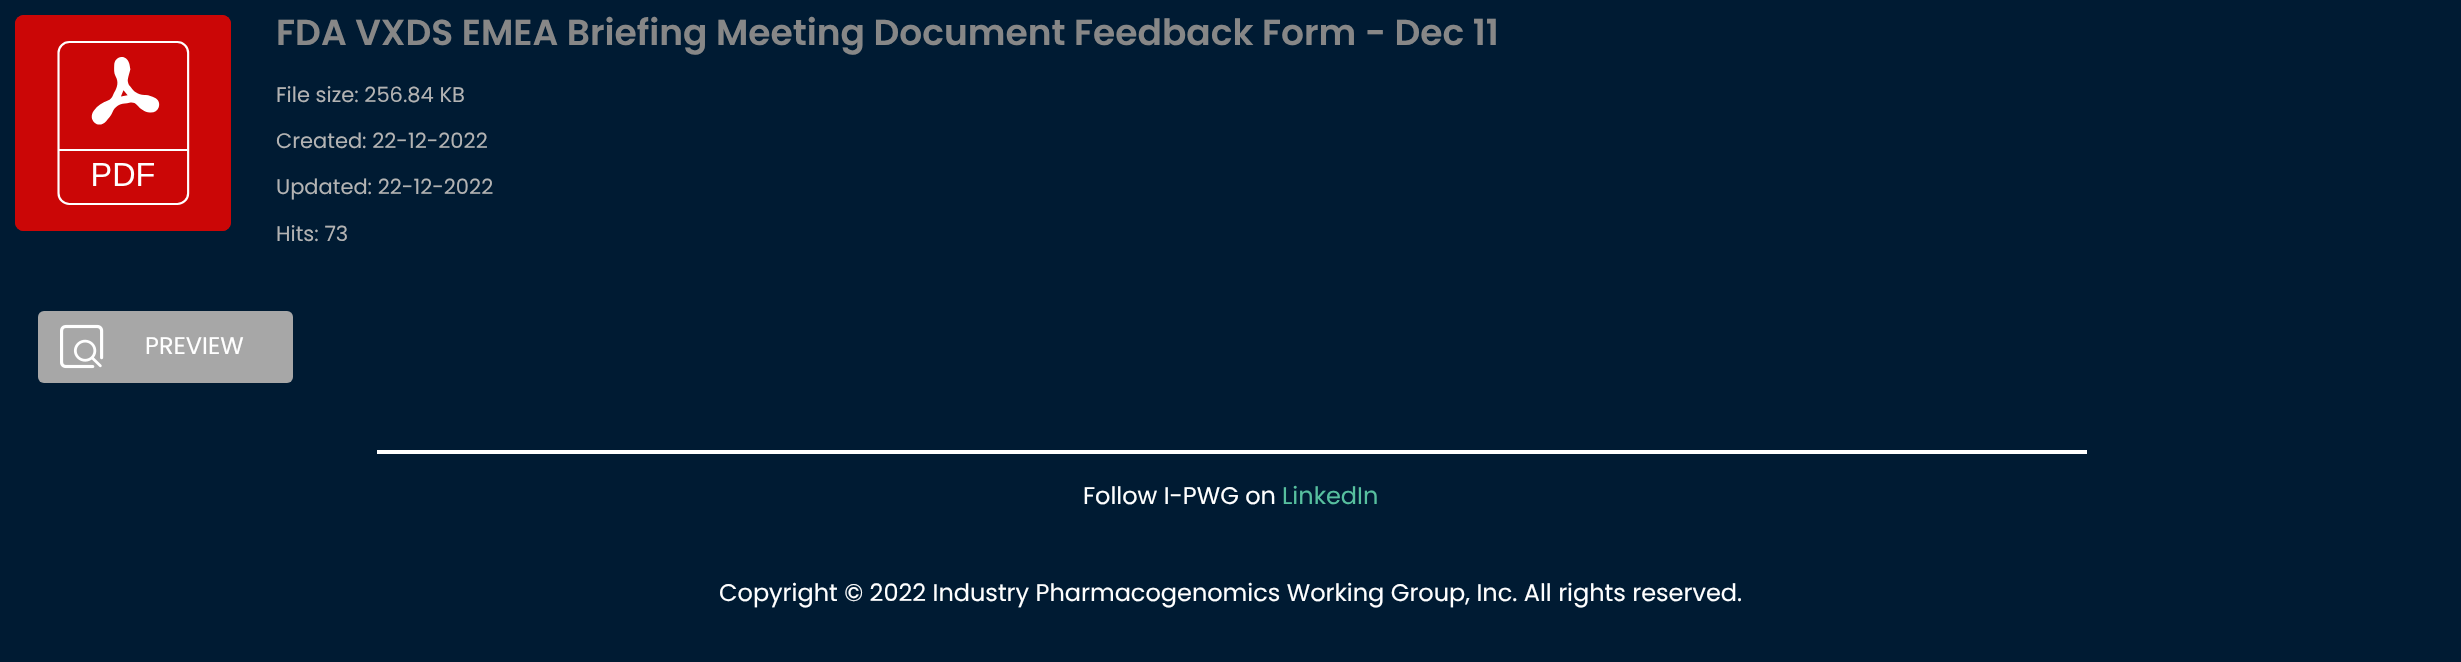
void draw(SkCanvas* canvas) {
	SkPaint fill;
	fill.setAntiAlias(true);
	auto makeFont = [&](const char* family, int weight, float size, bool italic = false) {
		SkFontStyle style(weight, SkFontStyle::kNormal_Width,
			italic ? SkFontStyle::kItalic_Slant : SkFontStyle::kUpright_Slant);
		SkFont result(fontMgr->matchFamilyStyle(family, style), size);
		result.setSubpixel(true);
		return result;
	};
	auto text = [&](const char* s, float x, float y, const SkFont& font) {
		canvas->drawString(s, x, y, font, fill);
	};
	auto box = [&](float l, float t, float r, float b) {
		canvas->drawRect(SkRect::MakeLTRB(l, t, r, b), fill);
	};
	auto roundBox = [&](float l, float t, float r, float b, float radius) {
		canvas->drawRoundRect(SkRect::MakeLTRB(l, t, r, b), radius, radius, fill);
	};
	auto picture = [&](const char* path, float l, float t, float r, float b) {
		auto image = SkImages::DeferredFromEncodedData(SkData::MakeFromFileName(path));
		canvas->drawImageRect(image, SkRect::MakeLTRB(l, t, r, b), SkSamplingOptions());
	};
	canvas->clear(0xFF001B33);
	fill.setColor(0xFFCB0606);
	roundBox(15, 15, 231, 231, 9);
	picture("image0.png", 15, 15, 231, 231);
	fill.setColor(0xFFA7A7A7);
	roundBox(38, 311, 293, 383, 6);
	picture("image1.png", 60, 324, 104, 369);
	fill.setColor(0xFFFFFFFF);
	box(377, 450, 2087, 454);
	auto font1 = makeFont("Poppins", 600, 36);
	fill.setColor(0xFF878787);
	text("FDA VXDS EMEA Briefing Meeting Document Feedback Form - Dec 11", 276, 45, font1);
	auto font2 = makeFont("Poppins", 400, 21);
	fill.setColor(0xFFB3B3B3);
	text("File size: 256.84 KB", 276, 102, font2);
	text("Created: 22-12-2022", 276, 148, font2);
	text("Updated: 22-12-2022", 276, 194, font2);
	text("Hits: 73", 276, 241, font2);
	auto font3 = makeFont("Poppins", 400, 24);
	fill.setColor(0xFFFFFFFF);
	text("PREVIEW", 145, 354, font3);
	text("Follow I-PWG on", 1083, 504, font3);
	fill.setColor(0xFF57C09F);
	text("LinkedIn", 1282, 504, font3);
	fill.setColor(0xFFFFFFFF);
	text("Copyright © 2022 Industry Pharmacogenomics Working Group, Inc. All rights reserved.", 719, 601, font3);
}
